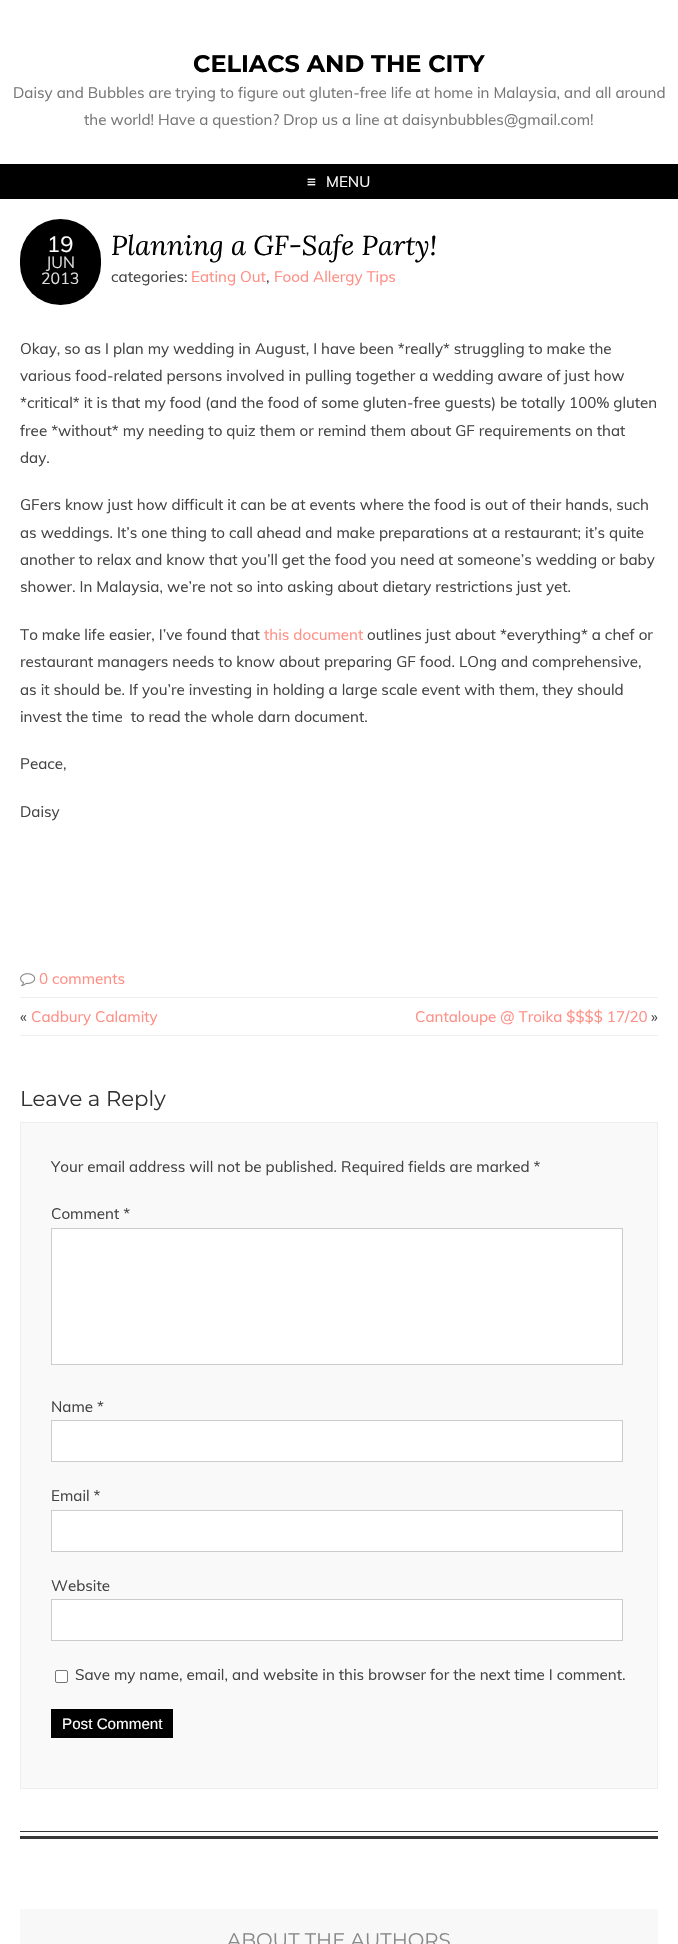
void draw(SkCanvas* canvas) {
	SkPaint fill;
	fill.setAntiAlias(true);
	auto makeFont = [&](const char* family, int weight, float size, bool italic = false) {
		SkFontStyle style(weight, SkFontStyle::kNormal_Width,
			italic ? SkFontStyle::kItalic_Slant : SkFontStyle::kUpright_Slant);
		SkFont result(fontMgr->matchFamilyStyle(family, style), size);
		result.setSubpixel(true);
		return result;
	};
	auto text = [&](const char* s, float x, float y, const SkFont& font) {
		canvas->drawString(s, x, y, font, fill);
	};
	auto box = [&](float l, float t, float r, float b) {
		canvas->drawRect(SkRect::MakeLTRB(l, t, r, b), fill);
	};
	auto roundBox = [&](float l, float t, float r, float b, float radius) {
		canvas->drawRoundRect(SkRect::MakeLTRB(l, t, r, b), radius, radius, fill);
	};
	auto picture = [&](const char* path, float l, float t, float r, float b) {
		auto image = SkImages::DeferredFromEncodedData(SkData::MakeFromFileName(path));
		canvas->drawImageRect(image, SkRect::MakeLTRB(l, t, r, b), SkSamplingOptions());
	};
	canvas->clear(0xFFFFFFFF);
	fill.setColor(0xFF000000);
	box(0, 164, 678, 199);
	picture("image0.png", 20, 1831, 658, 1839);
	roundBox(20, 219, 101, 305, 40.5f);
	picture("image1.png", 20, 973, 36, 987);
	fill.setColor(0xFFEEEEEE);
	box(20, 997, 658, 998);
	box(20, 1035, 658, 1036);
	fill.setColor(0xFFF9F9F9);
	canvas->drawRect(SkRect::MakeLTRB(20.5f, 1122.5f, 657.5f, 1788.5f), fill);
	fill.setStyle(SkPaint::kStroke_Style);
	fill.setStrokeWidth(1);
	fill.setColor(0xFFEEEEEE);
	canvas->drawRect(SkRect::MakeLTRB(20.5f, 1122.5f, 657.5f, 1788.5f), fill);
	fill.setStyle(SkPaint::kFill_Style);
	fill.setColor(0xFFFFFFFF);
	canvas->drawRect(SkRect::MakeLTRB(51.5f, 1228.5f, 622.5f, 1364.5f), fill);
	fill.setStyle(SkPaint::kStroke_Style);
	fill.setColor(0xFFCCCCCC);
	canvas->drawRect(SkRect::MakeLTRB(51.5f, 1228.5f, 622.5f, 1364.5f), fill);
	fill.setStyle(SkPaint::kFill_Style);
	fill.setColor(0xFFFFFFFF);
	canvas->drawRect(SkRect::MakeLTRB(51.5f, 1420.5f, 622.5f, 1461.5f), fill);
	fill.setStyle(SkPaint::kStroke_Style);
	fill.setColor(0xFFCCCCCC);
	canvas->drawRect(SkRect::MakeLTRB(51.5f, 1420.5f, 622.5f, 1461.5f), fill);
	fill.setStyle(SkPaint::kFill_Style);
	fill.setColor(0xFFFFFFFF);
	canvas->drawRect(SkRect::MakeLTRB(51.5f, 1510.5f, 622.5f, 1551.5f), fill);
	fill.setStyle(SkPaint::kStroke_Style);
	fill.setColor(0xFFCCCCCC);
	canvas->drawRect(SkRect::MakeLTRB(51.5f, 1510.5f, 622.5f, 1551.5f), fill);
	fill.setStyle(SkPaint::kFill_Style);
	fill.setColor(0xFFFFFFFF);
	canvas->drawRect(SkRect::MakeLTRB(51.5f, 1599.5f, 622.5f, 1640.5f), fill);
	fill.setStyle(SkPaint::kStroke_Style);
	fill.setColor(0xFFCCCCCC);
	canvas->drawRect(SkRect::MakeLTRB(51.5f, 1599.5f, 622.5f, 1640.5f), fill);
	fill.setStyle(SkPaint::kFill_Style);
	fill.setColor(0xFFFFFFFF);
	canvas->drawRoundRect(SkRect::MakeLTRB(55.5f, 1670.5f, 67.5f, 1682.5f), 1.5f, 1.5f, fill);
	fill.setStyle(SkPaint::kStroke_Style);
	fill.setColor(0xFF767676);
	canvas->drawRoundRect(SkRect::MakeLTRB(55.5f, 1670.5f, 67.5f, 1682.5f), 1.5f, 1.5f, fill);
	fill.setStyle(SkPaint::kFill_Style);
	fill.setColor(0xFF000000);
	box(51, 1709, 173, 1738);
	fill.setColor(0xFFF8F8F8);
	box(20, 1909, 658, 1944);
	auto font1 = makeFont("Montserrat", 700, 24);
	fill.setColor(0xFF000000);
	text("CELIACS AND THE CITY", 193, 72, font1);
	auto font2 = makeFont("Muli", 400, 15.2f);
	fill.setColor(0xFF777777);
	text("Daisy and Bubbles are trying to figure out gluten-free life at home in Malaysia, and all around", 13, 98, font2);
	text("the world! Have a question? Drop us a line at daisynbubbles@gmail.com!", 84, 125, font2);
	auto font3 = makeFont("Liberation Sans", 400, 15.2f);
	fill.setColor(0xFFFFFFFF);
	text("≡", 307, 187, font3);
	text("MENU", 326, 187, font2);
	auto font4 = makeFont("Muli", 400, 22);
	text("19", 47, 252, font4);
	auto font5 = makeFont("Muli", 400, 16);
	fill.setColor(0xFFDDDDDD);
	text("JUN", 46, 268, font5);
	text("2013", 41, 284, font5);
	auto font6 = makeFont("Lora", 400, 27.4f, true);
	fill.setColor(0xFF000000);
	text("Planning a GF-Safe Party!", 111, 255, font6);
	fill.setColor(0xFF444444);
	text("categories:", 111, 282, font2);
	fill.setColor(0xFFFF8F85);
	text("Eating Out", 191, 282, font2);
	fill.setColor(0xFF444444);
	text(",", 266, 282, font2);
	fill.setColor(0xFFFF8F85);
	text("Food Allergy Tips", 274, 282, font2);
	fill.setColor(0xFF444444);
	text("Okay, so as I plan my wedding in August, I have been *really* struggling to make the", 20, 354, font2);
	text("various food-related persons involved in pulling together a wedding aware of just how", 20, 381, font2);
	text("*critical* it is that my food (and the food of some gluten-free guests) be totally 100% gluten", 20, 408, font2);
	text("free *without* my needing to quiz them or remind them about GF requirements on that", 20, 436, font2);
	text("day.", 20, 463, font2);
	text("GFers know just how difficult it can be at events where the food is out of their hands, such", 20, 510, font2);
	text("as weddings. It’s one thing to call ahead and make preparations at a restaurant; it’s quite", 20, 538, font2);
	text("another to relax and know that you’ll get the food you need at someone’s wedding or baby", 20, 565, font2);
	text("shower. In Malaysia, we’re not so into asking about dietary restrictions just yet.", 20, 592, font2);
	text("To make life easier, I’ve found that", 20, 640, font2);
	fill.setColor(0xFFFF8F85);
	text("this document", 264, 640, font2);
	fill.setColor(0xFF444444);
	text("outlines just about *everything* a chef or", 367, 640, font2);
	text("restaurant managers needs to know about preparing GF food. LOng and comprehensive,", 20, 667, font2);
	text("as it should be. If you’re investing in holding a large scale event with them, they should", 20, 695, font2);
	text("invest the time  to read the whole darn document.", 20, 722, font2);
	text("Peace,", 20, 769, font2);
	text("Daisy", 20, 817, font2);
	fill.setColor(0xFFFF8F85);
	text("0 comments", 39, 984, font2);
	fill.setColor(0xFF444444);
	text("«", 20, 1022, font2);
	fill.setColor(0xFFFF8F85);
	text("Cadbury Calamity", 31, 1022, font2);
	text("Cantaloupe @ Troika $$$$ 17/20", 415, 1022, font2);
	fill.setColor(0xFF444444);
	text("»", 651, 1022, font2);
	auto font7 = makeFont("Montserrat", 400, 21.25f);
	fill.setColor(0xFF333333);
	text("Leave a Reply", 20, 1106, font7);
	fill.setColor(0xFF444444);
	text("Your email address will not be published. Required fields are marked *", 51, 1172, font2);
	text("Comment *", 51, 1219, font2);
	text("Name *", 51, 1412, font2);
	text("Email *", 51, 1501, font2);
	text("Website", 51, 1591, font2);
	text("Save my name, email, and website in this browser for the next time I comment.", 75, 1680, font2);
	fill.setColor(0xFFFFFFFF);
	text("Post Comment", 62, 1729, font3);
	auto font8 = makeFont("Montserrat", 400, 19.75f);
	fill.setColor(0xFF888888);
	text("ABOUT THE AUTHORS", 227, 1947, font8);
}
